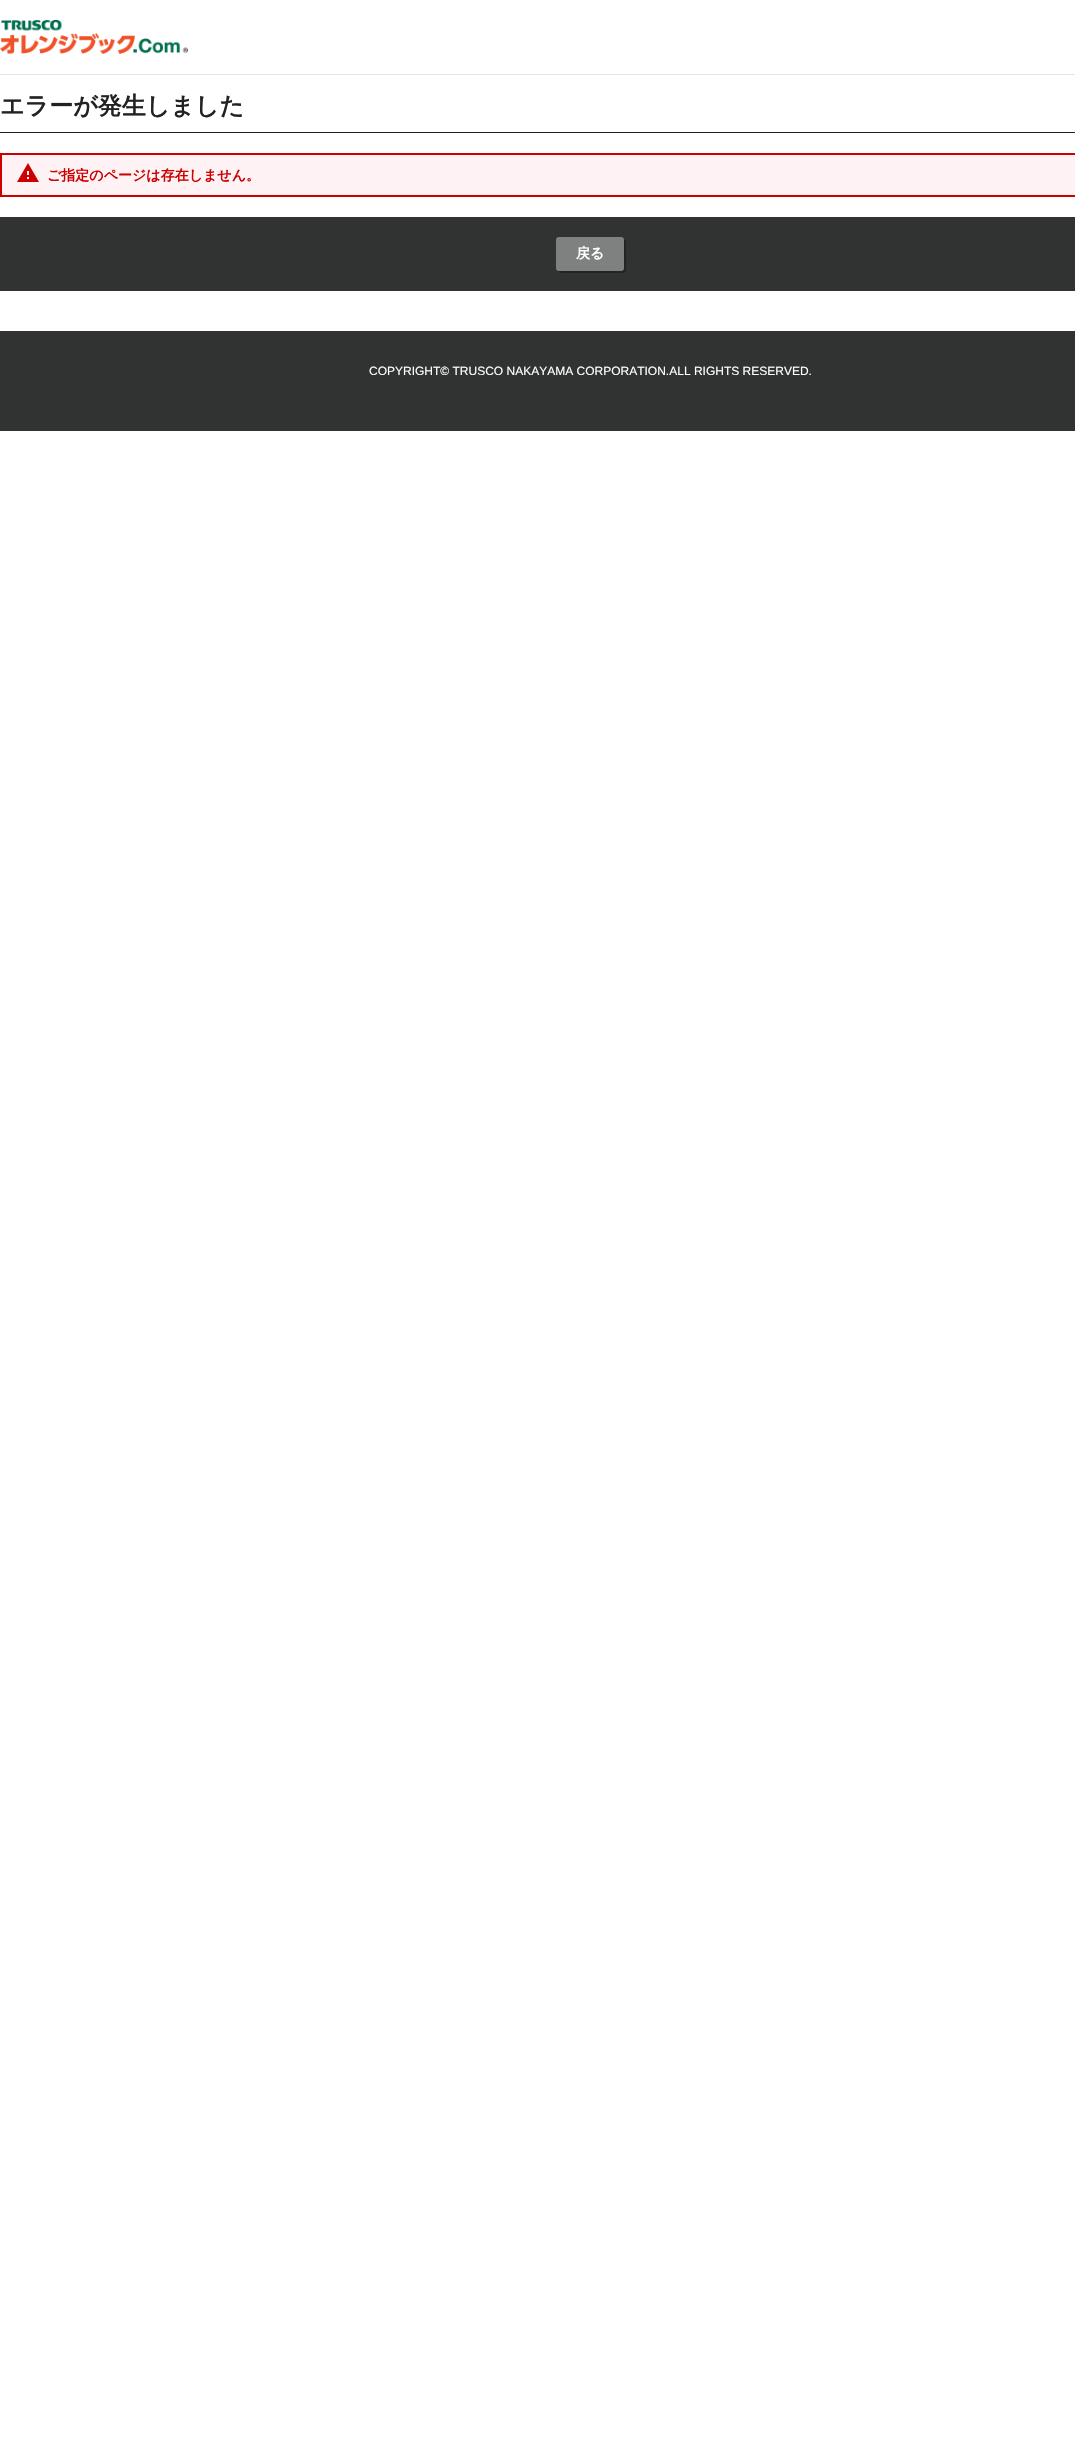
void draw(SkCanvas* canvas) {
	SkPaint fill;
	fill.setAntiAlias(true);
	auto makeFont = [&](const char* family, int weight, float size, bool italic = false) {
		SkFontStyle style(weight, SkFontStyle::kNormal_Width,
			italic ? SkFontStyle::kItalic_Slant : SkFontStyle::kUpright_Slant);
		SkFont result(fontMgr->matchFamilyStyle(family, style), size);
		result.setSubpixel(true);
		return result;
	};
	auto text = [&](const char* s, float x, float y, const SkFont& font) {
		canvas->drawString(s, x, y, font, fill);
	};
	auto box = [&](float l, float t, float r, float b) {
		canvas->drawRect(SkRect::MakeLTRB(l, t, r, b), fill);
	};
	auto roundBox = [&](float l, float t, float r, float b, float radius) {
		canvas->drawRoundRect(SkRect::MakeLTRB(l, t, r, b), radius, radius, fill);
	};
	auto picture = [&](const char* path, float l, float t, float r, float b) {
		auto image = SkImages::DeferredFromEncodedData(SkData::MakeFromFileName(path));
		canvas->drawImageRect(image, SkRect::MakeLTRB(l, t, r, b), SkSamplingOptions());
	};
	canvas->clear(0xFFFFFFFF);
	fill.setColor(0xFFE3E4E6);
	box(0, 74, 1075, 75);
	picture("image0.png", 0, 20, 188, 54);
	fill.setColor(0xFF222222);
	box(0, 132, 1075, 133);
	fill.setColor(0xFFFFF2F4);
	canvas->drawRect(SkRect::MakeLTRB(1, 154, 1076, 196), fill);
	fill.setStyle(SkPaint::kStroke_Style);
	fill.setStrokeWidth(2);
	fill.setColor(0xFFCC0000);
	canvas->drawRect(SkRect::MakeLTRB(1, 154, 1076, 196), fill);
	picture("image1.png", 17, 163, 39, 182);
	fill.setStyle(SkPaint::kFill_Style);
	fill.setColor(0xFF303332);
	box(0, 217, 1075, 291);
	fill.setColor(0xFF222423);
	canvas->drawPath(SkPathBuilder().moveTo(558, 271).cubicTo(559, 272, 560, 273, 561, 273).lineTo(623, 273).cubicTo(625, 273, 626, 272, 626, 270).lineTo(626, 242).cubicTo(626, 241, 625, 240, 624, 239).lineTo(624, 259).cubicTo(624, 261, 626, 271, 621, 271).close().detach(), fill);
	fill.setColor(0xFF7F8181);
	roundBox(556, 237, 624, 271, 3);
	fill.setColor(0xFF303332);
	box(0, 331, 1075, 431);
	auto font1 = makeFont("WenQuanYi Zen Hei", 700, 24);
	fill.setColor(0xFF222222);
	text("エラーが発生しました", 0, 114, font1);
	auto font2 = makeFont("WenQuanYi Zen Hei", 700, 14);
	fill.setColor(0xFFCC0000);
	text("ご指定のページは存在しません。", 47, 180, font2);
	fill.setColor(0xFFFFFFFF);
	text("戻る", 576, 258, font2);
	auto font3 = makeFont("Liberation Sans", 400, 12);
	text("COPYRIGHT© TRUSCO NAKAYAMA CORPORATION.ALL RIGHTS RESERVED.", 369, 375, font3);
}
